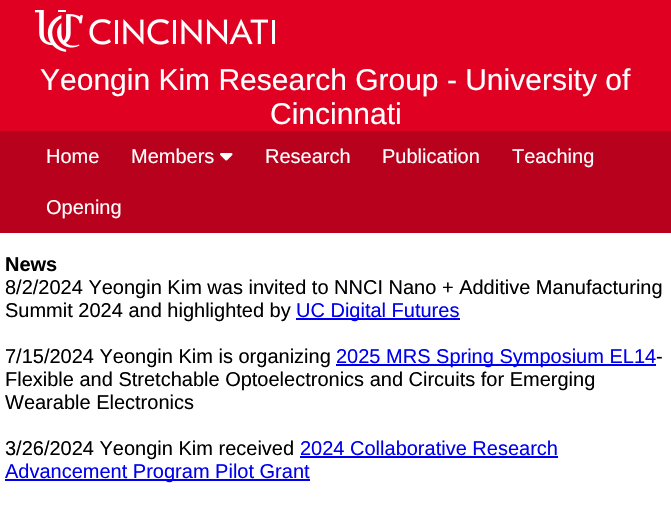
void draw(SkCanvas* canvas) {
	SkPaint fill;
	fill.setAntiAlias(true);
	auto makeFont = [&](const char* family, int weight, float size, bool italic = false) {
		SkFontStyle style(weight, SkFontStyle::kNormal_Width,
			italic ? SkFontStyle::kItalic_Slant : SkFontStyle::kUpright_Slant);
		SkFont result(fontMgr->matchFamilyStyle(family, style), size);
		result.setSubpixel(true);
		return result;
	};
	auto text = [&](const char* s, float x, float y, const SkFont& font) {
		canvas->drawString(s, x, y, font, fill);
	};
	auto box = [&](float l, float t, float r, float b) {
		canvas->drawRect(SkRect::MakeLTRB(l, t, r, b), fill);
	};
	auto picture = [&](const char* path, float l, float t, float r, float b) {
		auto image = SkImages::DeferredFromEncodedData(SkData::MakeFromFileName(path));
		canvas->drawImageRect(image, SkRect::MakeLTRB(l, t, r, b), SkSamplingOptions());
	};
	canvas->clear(0xFFFFFFFF);
	fill.setColor(0xFFE00122);
	box(0, 0, 671, 131);
	picture("image0.png", 35, 10, 275, 52);
	fill.setColor(0xFFB8011C);
	box(0, 131, 671, 233);
	picture("image1.png", 220, 153, 233, 161);
	fill.setColor(0xFF0000EE);
	box(296, 318, 460, 320);
	box(336, 364, 656, 366);
	box(300, 456, 558, 458);
	box(5, 479, 310, 481);
	auto font1 = makeFont("Liberation Sans", 400, 30);
	fill.setColor(0xFFFFFFFF);
	text("Yeongin Kim Research Group - University of", 40, 90, font1);
	text("Cincinnati", 270, 124, font1);
	auto font2 = makeFont("Liberation Sans", 400, 20);
	text("Home", 46, 163, font2);
	text("Members", 131, 163, font2);
	text("Research", 265, 163, font2);
	text("Publication", 382, 163, font2);
	text("Teaching", 512, 163, font2);
	text("Opening", 46, 214, font2);
	auto font3 = makeFont("Liberation Sans", 700, 20);
	fill.setColor(0xFF000000);
	text("News", 5, 271, font3);
	text("8/2/2024 Yeongin Kim was invited to NNCI Nano + Additive Manufacturing", 5, 294, font2);
	text("Summit 2024 and highlighted by", 5, 317, font2);
	fill.setColor(0xFF0000EE);
	text("UC Digital Futures", 296, 317, font2);
	fill.setColor(0xFF000000);
	text("7/15/2024 Yeongin Kim is organizing", 5, 363, font2);
	fill.setColor(0xFF0000EE);
	text("2025 MRS Spring Symposium EL14", 336, 363, font2);
	fill.setColor(0xFF000000);
	text("-", 656, 363, font2);
	text("Flexible and Stretchable Optoelectronics and Circuits for Emerging", 5, 386, font2);
	text("Wearable Electronics", 5, 409, font2);
	text("3/26/2024 Yeongin Kim received", 5, 455, font2);
	fill.setColor(0xFF0000EE);
	text("2024 Collaborative Research", 300, 455, font2);
	text("Advancement Program Pilot Grant", 5, 478, font2);
}
